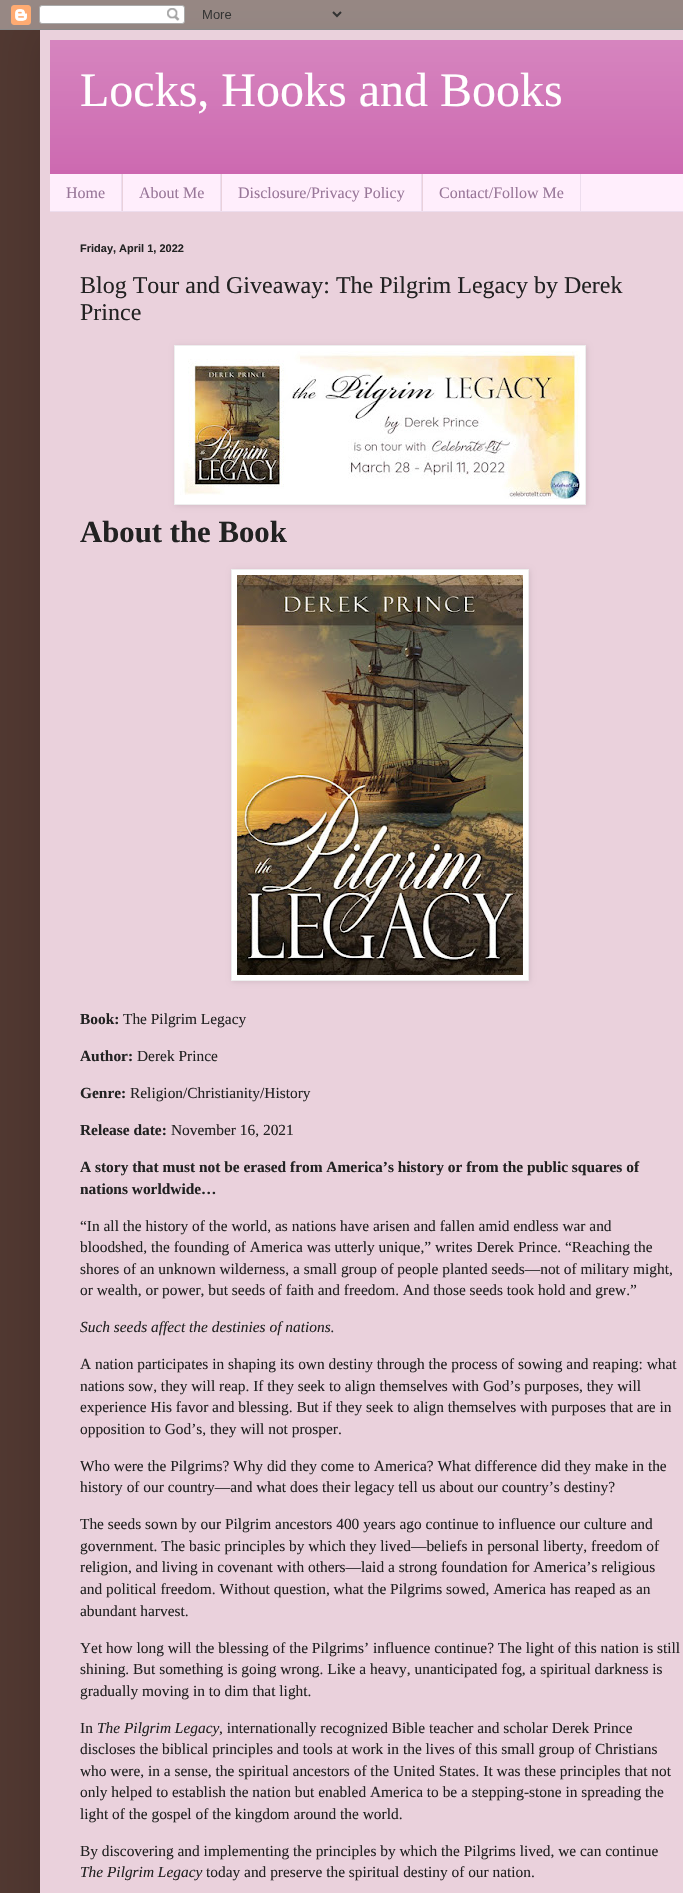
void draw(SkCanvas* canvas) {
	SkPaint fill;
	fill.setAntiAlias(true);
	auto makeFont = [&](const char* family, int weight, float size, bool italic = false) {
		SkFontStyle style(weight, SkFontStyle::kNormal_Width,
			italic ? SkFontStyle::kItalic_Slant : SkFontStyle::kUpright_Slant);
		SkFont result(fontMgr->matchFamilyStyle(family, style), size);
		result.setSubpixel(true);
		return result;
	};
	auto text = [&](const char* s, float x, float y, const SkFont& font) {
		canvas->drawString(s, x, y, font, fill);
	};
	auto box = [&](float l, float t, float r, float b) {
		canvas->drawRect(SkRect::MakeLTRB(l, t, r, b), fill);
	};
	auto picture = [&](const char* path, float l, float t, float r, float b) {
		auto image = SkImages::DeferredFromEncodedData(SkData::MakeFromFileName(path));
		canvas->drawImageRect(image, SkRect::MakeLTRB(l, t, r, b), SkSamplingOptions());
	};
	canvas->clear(0xFF513831);
	fill.setColor(0x26000000);
	fill.setMaskFilter(SkMaskFilter::MakeBlur(kNormal_SkBlurStyle, 20));
	canvas->drawRect(SkRect::MakeLTRB(40, 30, 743, 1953), fill);
	fill.setMaskFilter(nullptr);
	picture("image0.png", 0, 0, 683, 30);
	fill.setColor(0xFFEAD1DC);
	box(40, 30, 683, 1893);
	fill.setColor(0xFFCC66AF);
	box(50, 40, 683, 174);
	picture("image1.png", 50, 40, 683, 170);
	fill.setColor(0xFFFFEEFC);
	box(50, 174, 683, 211);
	fill.setColor(0xFFEDDDEE);
	box(50, 211, 683, 212);
	box(121, 174, 122, 211);
	box(220, 174, 221, 211);
	fill.setColor(0xFFEAD1DC);
	box(122, 174, 123, 211);
	fill.setColor(0xFFEDDDEE);
	box(421, 174, 422, 211);
	fill.setColor(0xFFEAD1DC);
	box(221, 174, 222, 211);
	fill.setColor(0xFFEDDDEE);
	box(580, 174, 581, 211);
	fill.setColor(0xFFEAD1DC);
	box(422, 174, 423, 211);
	fill.setColor(0x1A000000);
	fill.setMaskFilter(SkMaskFilter::MakeBlur(kNormal_SkBlurStyle, 2.5f));
	canvas->drawRect(SkRect::MakeLTRB(175, 346, 587, 506), fill);
	fill.setMaskFilter(nullptr);
	fill.setColor(0xFFFFFFFF);
	canvas->drawRect(SkRect::MakeLTRB(174.5f, 345.5f, 585.5f, 504.5f), fill);
	fill.setStyle(SkPaint::kStroke_Style);
	fill.setStrokeWidth(1);
	fill.setColor(0xFFEEEEEE);
	canvas->drawRect(SkRect::MakeLTRB(174.5f, 345.5f, 585.5f, 504.5f), fill);
	picture("image2.png", 180, 351, 580, 499);
	fill.setStyle(SkPaint::kFill_Style);
	fill.setColor(0x1A000000);
	fill.setMaskFilter(SkMaskFilter::MakeBlur(kNormal_SkBlurStyle, 2.5f));
	canvas->drawRect(SkRect::MakeLTRB(232, 570, 530, 982), fill);
	fill.setMaskFilter(nullptr);
	fill.setColor(0xFFFFFFFF);
	canvas->drawRect(SkRect::MakeLTRB(231.5f, 569.5f, 528.5f, 980.5f), fill);
	fill.setStyle(SkPaint::kStroke_Style);
	fill.setColor(0xFFEEEEEE);
	canvas->drawRect(SkRect::MakeLTRB(231.5f, 569.5f, 528.5f, 980.5f), fill);
	picture("image3.png", 237, 575, 523, 975);
	auto font1 = makeFont("Liberation Serif", 400, 48);
	fill.setStyle(SkPaint::kFill_Style);
	fill.setColor(0xFFFFFFFF);
	text("Locks, Hooks and Books", 80, 106, font1);
	auto font2 = makeFont("Liberation Serif", 400, 16);
	fill.setColor(0xFF997799);
	text("Home", 66, 198, font2);
	text("About Me", 139, 198, font2);
	text("Disclosure/Privacy Policy", 238, 198, font2);
	text("Contact/Follow Me", 439, 198, font2);
	auto font3 = makeFont("Liberation Sans", 700, 11);
	fill.setColor(0xFF222222);
	text("Friday, April 1, 2022", 80, 252, font3);
	auto font4 = makeFont("Liberation Serif", 400, 24);
	text("Blog Tour and Giveaway: The Pilgrim Legacy by Derek", 80, 293, font4);
	text("Prince", 80, 320, font4);
	auto font5 = makeFont("Liberation Serif", 700, 30.75f);
	text("About the Book", 80, 542, font5);
	auto font6 = makeFont("Liberation Serif", 700, 15.4f);
	text("Book:", 80, 1024, font6);
	auto font7 = makeFont("Liberation Serif", 400, 15.4f);
	text("The Pilgrim Legacy", 123, 1024, font7);
	text("Author:", 80, 1061, font6);
	text("Derek Prince", 137, 1061, font7);
	text("Genre:", 80, 1098, font6);
	text("Religion/Christianity/History", 130, 1098, font7);
	text("Release date:", 80, 1135, font6);
	text("November 16, 2021", 171, 1135, font7);
	text("A story that must not be erased from America’s history or from the public squares of", 80, 1172, font6);
	text("nations worldwide…", 80, 1194, font6);
	text("“In all the history of the world, as nations have arisen and fallen amid endless war and", 80, 1231, font7);
	text("bloodshed, the founding of America was utterly unique,” writes Derek Prince. “Reaching the", 80, 1252, font7);
	text("shores of an unknown wilderness, a small group of people planted seeds—not of military might,", 80, 1274, font7);
	text("or wealth, or power, but seeds of faith and freedom. And those seeds took hold and grew.”", 80, 1295, font7);
	auto font8 = makeFont("Liberation Serif", 400, 15.4f, true);
	text("Such seeds affect the destinies of nations.", 80, 1332, font8);
	text("A nation participates in shaping its own destiny through the process of sowing and reaping: what", 80, 1369, font7);
	text("nations sow, they will reap. If they seek to align themselves with God’s purposes, they will", 80, 1391, font7);
	text("experience His favor and blessing. But if they seek to align themselves with purposes that are in", 80, 1412, font7);
	text("opposition to God’s, they will not prosper.", 80, 1434, font7);
	text("Who were the Pilgrims? Why did they come to America? What difference did they make in the", 80, 1471, font7);
	text("history of our country—and what does their legacy tell us about our country’s destiny?", 80, 1492, font7);
	text("The seeds sown by our Pilgrim ancestors 400 years ago continue to influence our culture and", 80, 1529, font7);
	text("government. The basic principles by which they lived—beliefs in personal liberty, freedom of", 80, 1551, font7);
	text("religion, and living in covenant with others—laid a strong foundation for America’s religious", 80, 1572, font7);
	text("and political freedom. Without question, what the Pilgrims sowed, America has reaped as an", 80, 1594, font7);
	text("abundant harvest.", 80, 1616, font7);
	text("Yet how long will the blessing of the Pilgrims’ influence continue? The light of this nation is still", 80, 1653, font7);
	text("shining. But something is going wrong. Like a heavy, unanticipated fog, a spiritual darkness is", 80, 1674, font7);
	text("gradually moving in to dim that light.", 80, 1696, font7);
	text("In", 80, 1733, font7);
	text("The Pilgrim Legacy", 97, 1733, font8);
	text(", internationally recognized Bible teacher and scholar Derek Prince", 219, 1733, font7);
	text("discloses the biblical principles and tools at work in the lives of this small group of Christians", 80, 1754, font7);
	text("who were, in a sense, the spiritual ancestors of the United States. It was these principles that not", 80, 1776, font7);
	text("only helped to establish the nation but enabled America to be a stepping-stone in spreading the", 80, 1797, font7);
	text("light of the gospel of the kingdom around the world.", 80, 1819, font7);
	text("By discovering and implementing the principles by which the Pilgrims lived, we can continue", 80, 1856, font7);
	text("The Pilgrim Legacy", 80, 1877, font8);
	text("today and preserve the spiritual destiny of our nation.", 206, 1877, font7);
}
